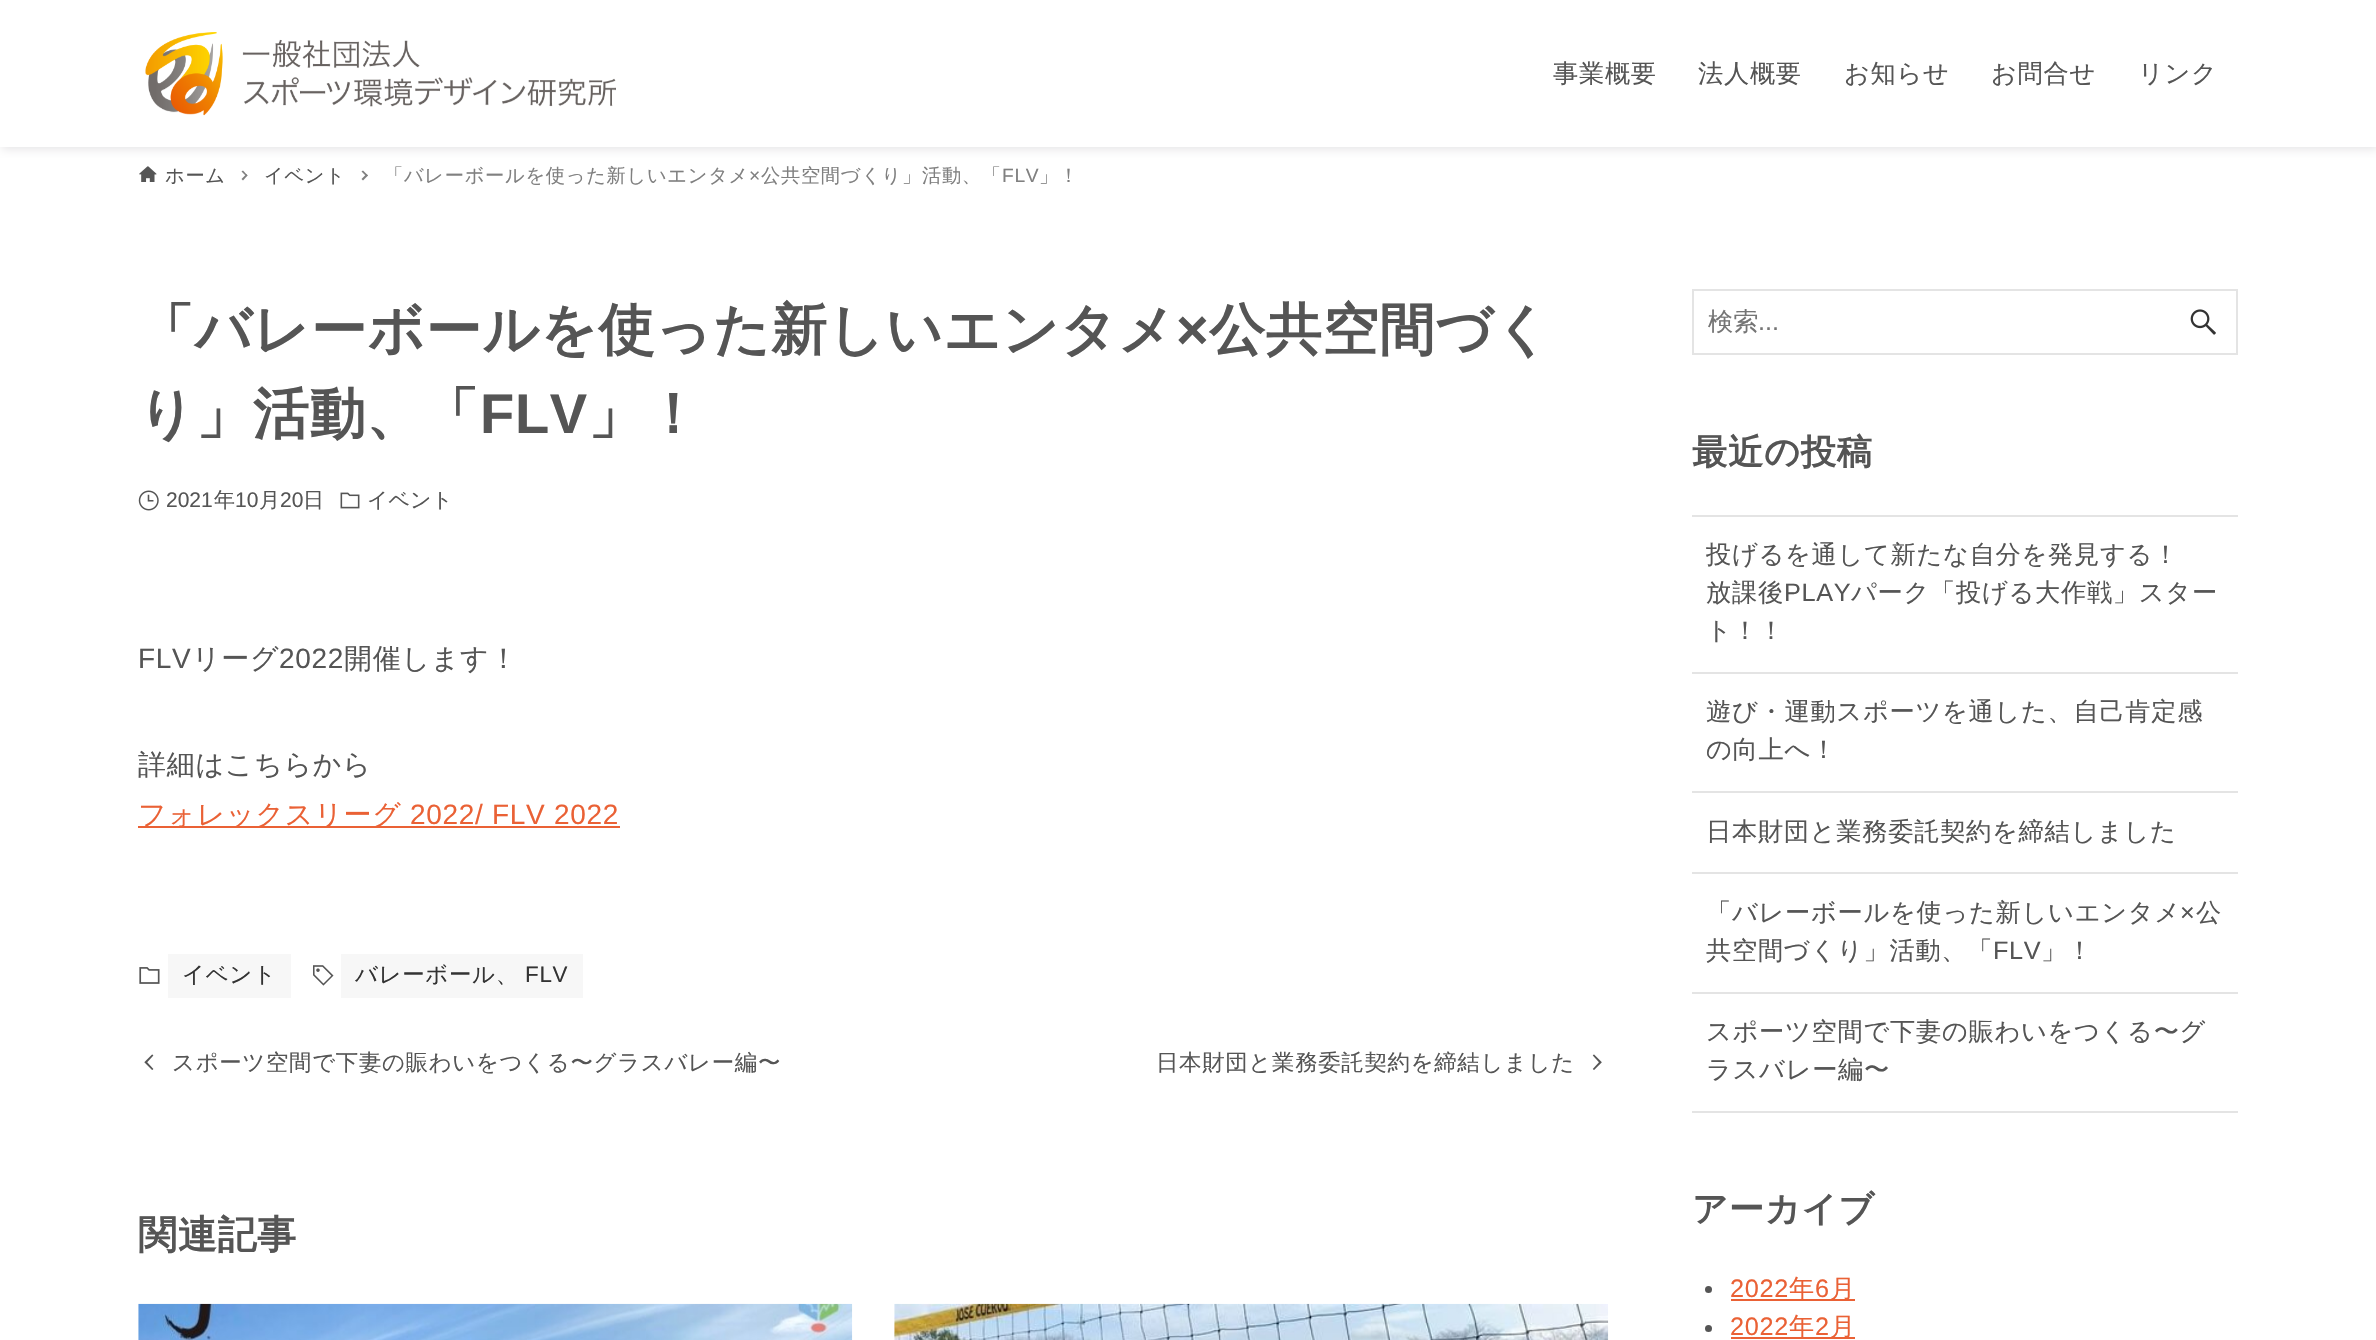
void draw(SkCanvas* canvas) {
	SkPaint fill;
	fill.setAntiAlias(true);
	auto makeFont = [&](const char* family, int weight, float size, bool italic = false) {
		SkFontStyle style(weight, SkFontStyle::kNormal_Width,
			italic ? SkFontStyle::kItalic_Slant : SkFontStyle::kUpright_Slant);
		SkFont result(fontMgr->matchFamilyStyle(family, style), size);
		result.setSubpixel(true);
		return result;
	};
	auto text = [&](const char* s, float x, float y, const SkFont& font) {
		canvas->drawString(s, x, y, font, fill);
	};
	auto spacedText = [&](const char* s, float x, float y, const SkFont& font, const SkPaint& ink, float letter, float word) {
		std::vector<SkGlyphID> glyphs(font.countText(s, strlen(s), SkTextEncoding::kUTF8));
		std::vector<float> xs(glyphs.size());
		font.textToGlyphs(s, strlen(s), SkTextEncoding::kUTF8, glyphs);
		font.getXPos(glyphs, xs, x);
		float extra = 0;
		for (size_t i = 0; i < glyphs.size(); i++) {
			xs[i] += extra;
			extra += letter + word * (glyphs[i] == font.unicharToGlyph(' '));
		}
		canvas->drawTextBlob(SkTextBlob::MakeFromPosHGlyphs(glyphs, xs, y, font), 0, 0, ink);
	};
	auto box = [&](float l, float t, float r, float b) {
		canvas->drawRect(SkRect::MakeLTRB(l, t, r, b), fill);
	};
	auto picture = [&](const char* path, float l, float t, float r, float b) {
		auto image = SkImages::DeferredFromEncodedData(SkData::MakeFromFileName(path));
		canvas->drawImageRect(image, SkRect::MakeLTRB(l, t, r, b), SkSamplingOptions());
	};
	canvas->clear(0xFFFFFFFF);
	canvas->save();
	canvas->clipRect(SkRect::MakeLTRB(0, 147, 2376, 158));
	fill.setColor(0xFFE5E4E6);
	fill.setMaskFilter(SkMaskFilter::MakeBlur(kNormal_SkBlurStyle, 4.5f));
	canvas->drawRect(SkRect::MakeLTRB(2, 2, 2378, 149), fill);
	fill.setMaskFilter(nullptr);
	canvas->restore();
	picture("image0.png", 145, 32, 616, 116);
	picture("image1.png", 139, 166, 157, 182);
	fill.setColor(0xFF808080);
	canvas->drawPath(SkPathBuilder().moveTo(243, 170.5f).lineTo(247.5f, 175.5f).lineTo(246.5f, 176.5f).lineTo(241.5f, 171.5f).close().detach(), fill);
	canvas->drawPath(SkPathBuilder().moveTo(246.5f, 174).lineTo(247.5f, 175.5f).lineTo(243, 180.5f).lineTo(241.5f, 179).close().detach(), fill);
	canvas->drawPath(SkPathBuilder().moveTo(363, 170.5f).lineTo(368, 175.5f).lineTo(366.5f, 176.5f).lineTo(361.5f, 171.5f).close().detach(), fill);
	canvas->drawPath(SkPathBuilder().moveTo(366.5f, 174).lineTo(368, 175.5f).lineTo(363, 180.5f).lineTo(361.5f, 179).close().detach(), fill);
	picture("image2.png", 138, 490, 159, 511);
	picture("image3.png", 340, 492, 360, 509);
	fill.setColor(0xFFEA6135);
	box(138, 826, 620, 828);
	picture("image4.png", 139, 967, 160, 984);
	fill.setColor(0xFFF7F7F7);
	box(168, 954, 291, 998);
	picture("image5.png", 313, 965, 334, 986);
	box(341, 954, 583, 998);
	picture("image6.png", 144, 1054, 154, 1070);
	picture("image7.png", 1592, 1054, 1602, 1070);
	picture("image8.png", 138, 1303, 853, 1340);
	picture("image9.png", 894, 1303, 1609, 1340);
	fill.setStyle(SkPaint::kStroke_Style);
	fill.setStrokeWidth(2);
	fill.setColor(0xFFE4E4E4);
	canvas->drawRect(SkRect::MakeLTRB(1693, 290, 2237, 354), fill);
	picture("image10.png", 2190, 309, 2216, 335);
	fill.setStyle(SkPaint::kFill_Style);
	box(1692, 515, 2238, 517);
	box(1692, 1111, 2238, 1113);
	box(1692, 672, 2238, 674);
	box(1692, 791, 2238, 793);
	box(1692, 872, 2238, 874);
	box(1692, 992, 2238, 994);
	fill.setColor(0xFF555555);
	canvas->drawCircle(1708.5f, 1289.5f, 3.5f, fill);
	fill.setColor(0xFFEA6135);
	box(1731, 1299, 1855, 1301);
	fill.setColor(0xFF555555);
	canvas->drawCircle(1708.5f, 1328.5f, 3.5f, fill);
	fill.setColor(0xFFEA6135);
	box(1731, 1337, 1855, 1339);
	auto font1 = makeFont("WenQuanYi Zen Hei", 500, 25.25f);
	fill.setColor(0xFF555555);
	spacedText("事業概要", 1553, 82, font1, fill, 0.7f, 0);
	spacedText("法人概要", 1698, 82, font1, fill, 0.7f, 0);
	spacedText("お知らせ", 1844, 82, font1, fill, 0.7f, 0);
	spacedText("お問合せ", 1991, 82, font1, fill, 0.7f, 0);
	spacedText("リンク", 2138, 82, font1, fill, 0.7f, 0);
	auto font2 = makeFont("WenQuanYi Zen Hei", 500, 19.25f);
	spacedText("ホーム", 165, 182, font2, fill, 0.7f, 0);
	spacedText("イベント", 264, 182, font2, fill, 0.7f, 0);
	fill.setColor(0xFF808080);
	spacedText("「バレーボールを使った新しいエンタメ", 384, 182, font2, fill, 0.7f, 0);
	auto font3 = makeFont("Liberation Sans", 400, 19.25f);
	spacedText("×", 749, 182, font3, fill, 0.7f, 0);
	spacedText("公共空間づくり」活動、「", 761, 182, font2, fill, 0.7f, 0);
	spacedText("FLV", 1002, 182, font3, fill, 0.7f, 0);
	spacedText("」！", 1039, 182, font2, fill, 0.7f, 0);
	auto font4 = makeFont("WenQuanYi Zen Hei", 700, 56);
	fill.setColor(0xFF555555);
	spacedText("「バレーボールを使った新しいエンタメ", 138, 349, font4, fill, 0.7f, 0);
	auto font5 = makeFont("Liberation Sans", 700, 56);
	spacedText("×", 1176, 349, font5, fill, 0.7f, 0);
	spacedText("公共空間づく", 1209, 349, font4, fill, 0.7f, 0);
	spacedText("り」活動、「", 138, 433, font4, fill, 0.7f, 0);
	spacedText("FLV", 480, 433, font5, fill, 0.7f, 0);
	spacedText("」！", 588, 433, font4, fill, 0.7f, 0);
	auto font6 = makeFont("Liberation Sans", 400, 21);
	text("2021", 166, 507, font6);
	auto font7 = makeFont("WenQuanYi Zen Hei", 500, 21);
	text("年", 214, 507, font7);
	text("10", 235, 507, font6);
	text("月", 259, 507, font7);
	text("20", 280, 507, font6);
	text("日", 303, 507, font7);
	text("イベント", 367, 507, font7);
	auto font8 = makeFont("Liberation Sans", 400, 28);
	spacedText("FLV", 138, 668, font8, fill, 0.7f, 0);
	auto font9 = makeFont("WenQuanYi Zen Hei", 500, 28);
	spacedText("リーグ", 192, 668, font9, fill, 0.7f, 0);
	spacedText("2022", 279, 668, font8, fill, 0.7f, 0);
	spacedText("開催します！", 344, 668, font9, fill, 0.7f, 0);
	spacedText("詳細はこちらから", 138, 774, font9, fill, 0.7f, 0);
	fill.setColor(0xFFEA6135);
	spacedText("フォレックスリーグ", 138, 824, font9, fill, 0.7f, 0);
	spacedText("2022/ FLV 2022", 410, 824, font8, fill, 0.7f, 0);
	auto font10 = makeFont("WenQuanYi Zen Hei", 500, 22.4f);
	fill.setColor(0xFF333333);
	spacedText("イベント", 182, 982, font10, fill, 0.7f, 0);
	spacedText("バレーボール、", 355, 982, font10, fill, 0.7f, 0);
	auto font11 = makeFont("Liberation Sans", 400, 22.4f);
	spacedText("FLV", 525, 982, font11, fill, 0.7f, 0);
	fill.setColor(0xFF555555);
	spacedText("スポーツ空間で下妻の賑わいをつくる〜グラスバレー編〜", 172, 1070, font10, fill, 0.7f, 0);
	spacedText("日本財団と業務委託契約を締結しました", 1156, 1070, font10, fill, 0.7f, 0);
	auto font12 = makeFont("WenQuanYi Zen Hei", 700, 39);
	spacedText("関連記事", 138, 1248, font12, fill, 0.7f, 0);
	fill.setColor(0xFF757575);
	text("検索", 1708, 330, font1);
	auto font13 = makeFont("Liberation Sans", 400, 25.25f);
	text("...", 1758, 330, font13);
	auto font14 = makeFont("WenQuanYi Zen Hei", 700, 35.25f);
	fill.setColor(0xFF555555);
	spacedText("最近の投稿", 1692, 464, font14, fill, 0.7f, 0);
	spacedText("投げるを通して新たな自分を発見する！", 1706, 563, font1, fill, 0.7f, 0);
	spacedText("放課後", 1706, 601, font1, fill, 0.7f, 0);
	spacedText("PLAY", 1784, 601, font13, fill, 0.7f, 0);
	spacedText("パーク「投げる大作戦」スター", 1851, 601, font1, fill, 0.7f, 0);
	spacedText("ト！！", 1706, 639, font1, fill, 0.7f, 0);
	spacedText("遊び・運動スポーツを通した、自己肯定感", 1706, 720, font1, fill, 0.7f, 0);
	spacedText("の向上へ！", 1706, 758, font1, fill, 0.7f, 0);
	spacedText("日本財団と業務委託契約を締結しました", 1706, 840, font1, fill, 0.7f, 0);
	spacedText("「バレーボールを使った新しいエンタメ", 1706, 921, font1, fill, 0.7f, 0);
	spacedText("×", 2180, 921, font13, fill, 0.7f, 0);
	spacedText("公", 2196, 921, font1, fill, 0.7f, 0);
	spacedText("共空間づくり」活動、「", 1706, 959, font1, fill, 0.7f, 0);
	spacedText("FLV", 1993, 959, font13, fill, 0.7f, 0);
	spacedText("」！", 2041, 959, font1, fill, 0.7f, 0);
	spacedText("スポーツ空間で下妻の賑わいをつくる〜グ", 1706, 1040, font1, fill, 0.7f, 0);
	spacedText("ラスバレー編〜", 1706, 1078, font1, fill, 0.7f, 0);
	spacedText("アーカイブ", 1692, 1221, font14, fill, 0.7f, 0);
	fill.setColor(0xFFEA6135);
	spacedText("2022", 1730, 1297, font13, fill, 0.7f, 0);
	spacedText("年", 1789, 1297, font1, fill, 0.7f, 0);
	spacedText("6", 1815, 1297, font13, fill, 0.7f, 0);
	spacedText("月", 1830, 1297, font1, fill, 0.7f, 0);
	spacedText("2022", 1730, 1335, font13, fill, 0.7f, 0);
	spacedText("年", 1789, 1335, font1, fill, 0.7f, 0);
	spacedText("2", 1815, 1335, font13, fill, 0.7f, 0);
	spacedText("月", 1830, 1335, font1, fill, 0.7f, 0);
}
